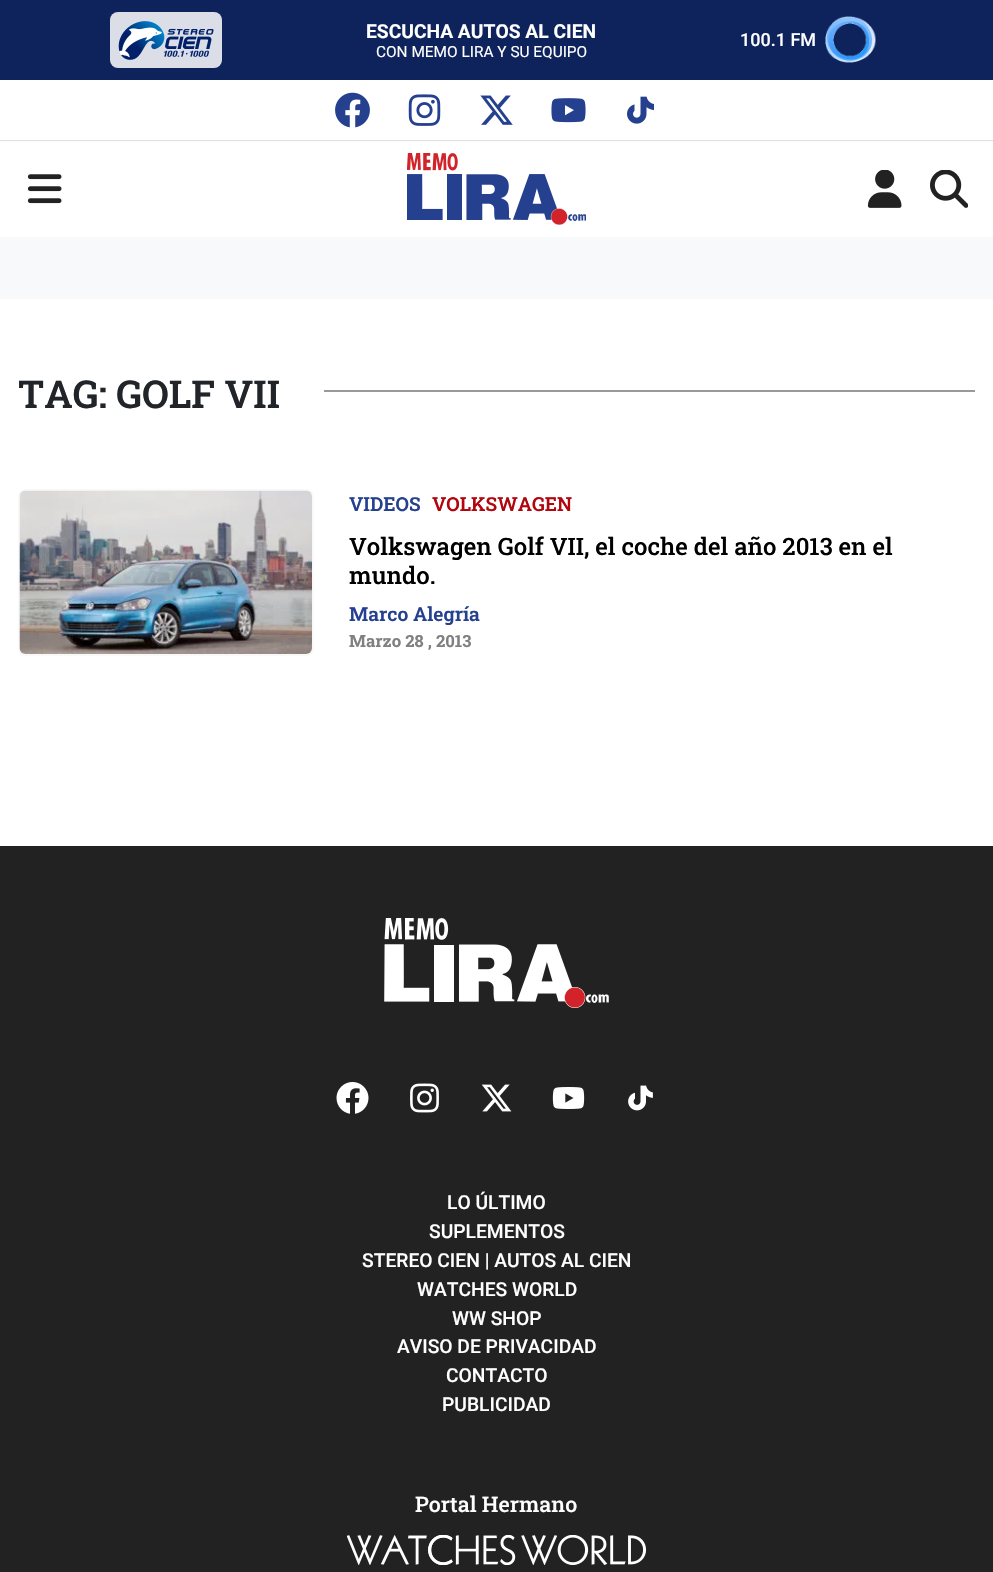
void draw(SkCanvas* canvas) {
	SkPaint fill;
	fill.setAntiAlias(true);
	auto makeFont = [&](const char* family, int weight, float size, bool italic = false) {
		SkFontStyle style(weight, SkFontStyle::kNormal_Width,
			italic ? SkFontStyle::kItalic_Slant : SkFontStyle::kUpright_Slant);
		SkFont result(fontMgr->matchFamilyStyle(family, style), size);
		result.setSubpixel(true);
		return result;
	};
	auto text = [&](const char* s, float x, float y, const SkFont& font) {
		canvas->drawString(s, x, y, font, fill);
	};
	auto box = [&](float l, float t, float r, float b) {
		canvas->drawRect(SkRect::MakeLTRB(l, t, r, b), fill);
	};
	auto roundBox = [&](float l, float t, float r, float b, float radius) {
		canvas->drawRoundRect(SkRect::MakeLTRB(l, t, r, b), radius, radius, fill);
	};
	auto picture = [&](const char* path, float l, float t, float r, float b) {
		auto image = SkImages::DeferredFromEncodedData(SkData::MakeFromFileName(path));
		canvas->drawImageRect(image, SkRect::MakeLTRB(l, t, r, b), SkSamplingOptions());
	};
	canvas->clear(0xFFFFFFFF);
	fill.setColor(0xFF0E225C);
	box(0, 0, 993, 80);
	fill.setColor(0xFFDBDEE7);
	roundBox(110, 12, 222, 68, 8);
	picture("image0.png", 118, 21, 214, 60);
	picture("image1.png", 825, 16, 876, 63);
	fill.setColor(0xFFDEE2E6);
	box(0, 140, 993, 141);
	fill.setColor(0xFFFAFBFB);
	box(0, 141, 993, 142);
	picture("image2.png", 335, 92, 370, 128);
	picture("image3.png", 408, 94, 441, 126);
	picture("image4.png", 480, 95, 513, 125);
	picture("image5.png", 551, 98, 586, 123);
	picture("image6.png", 627, 96, 654, 124);
	picture("image7.png", 27, 174, 62, 204);
	picture("image8.png", 407, 153, 586, 225);
	picture("image9.png", 867, 170, 902, 208);
	picture("image10.png", 930, 170, 968, 208);
	fill.setColor(0xFFF8F9FA);
	box(0, 237, 993, 299);
	fill.setColor(0xFF999999);
	box(324, 390, 975, 392);
	fill.setStyle(SkPaint::kStroke_Style);
	fill.setStrokeWidth(2);
	fill.setColor(0xFFF9F9F9);
	canvas->drawRoundRect(SkRect::MakeLTRB(19, 490, 313, 655), 7, 7, fill);
	picture("image11.png", 19, 490, 312, 654);
	fill.setStyle(SkPaint::kFill_Style);
	fill.setColor(0xFF222222);
	box(0, 846, 993, 1572);
	picture("image12.png", 384, 918, 609, 1008);
	picture("image13.png", 336, 1082, 369, 1114);
	picture("image14.png", 410, 1083, 439, 1113);
	picture("image15.png", 481, 1084, 512, 1112);
	picture("image16.png", 552, 1087, 585, 1109);
	picture("image17.png", 628, 1085, 653, 1111);
	picture("image18.png", 347, 1535, 647, 1565);
	auto font1 = makeFont("Roboto", 700, 19.25f);
	fill.setColor(0xFFFFFFFF);
	text("ESCUCHA AUTOS AL CIEN", 366, 38, font1);
	auto font2 = makeFont("Roboto", 400, 15.4f);
	text("CON MEMO LIRA Y SU EQUIPO", 376, 57, font2);
	auto font3 = makeFont("Roboto", 500, 18);
	text("100.1 FM", 740, 46, font3);
	auto font4 = makeFont("Roboto Slab", 600, 38.5f);
	fill.setColor(0xFF212529);
	text("TAG: GOLF VII", 18, 408, font4);
	auto font5 = makeFont("Roboto Slab", 600, 19.25f);
	fill.setColor(0xFF25408F);
	text("VIDEOS", 349, 511, font5);
	fill.setColor(0xFFB1060D);
	text("VOLKSWAGEN", 432, 511, font5);
	auto font6 = makeFont("Roboto Slab", 500, 24);
	fill.setColor(0xFF000000);
	text("Volkswagen Golf VII, el coche del año 2013 en el", 349, 555, font6);
	text("mundo.", 349, 584, font6);
	fill.setColor(0xFF25408F);
	text("Marco Alegría", 349, 621, font5);
	auto font7 = makeFont("Roboto Slab", 700, 16.75f);
	fill.setColor(0xFF808080);
	text("Marzo 28 , 2013", 349, 647, font7);
	auto font8 = makeFont("Roboto", 500, 19.25f);
	fill.setColor(0xFFFFFFFF);
	text("LO ÚLTIMO", 447, 1209, font8);
	text("SUPLEMENTOS", 429, 1238, font8);
	text("STEREO CIEN | AUTOS AL CIEN", 362, 1267, font8);
	text("WATCHES WORLD", 417, 1296, font8);
	text("WW SHOP", 452, 1325, font8);
	text("AVISO DE PRIVACIDAD", 397, 1353, font8);
	text("CONTACTO", 446, 1382, font8);
	text("PUBLICIDAD", 442, 1411, font8);
	auto font9 = makeFont("Roboto Slab", 500, 21.5f);
	text("Portal Hermano", 415, 1512, font9);
}
